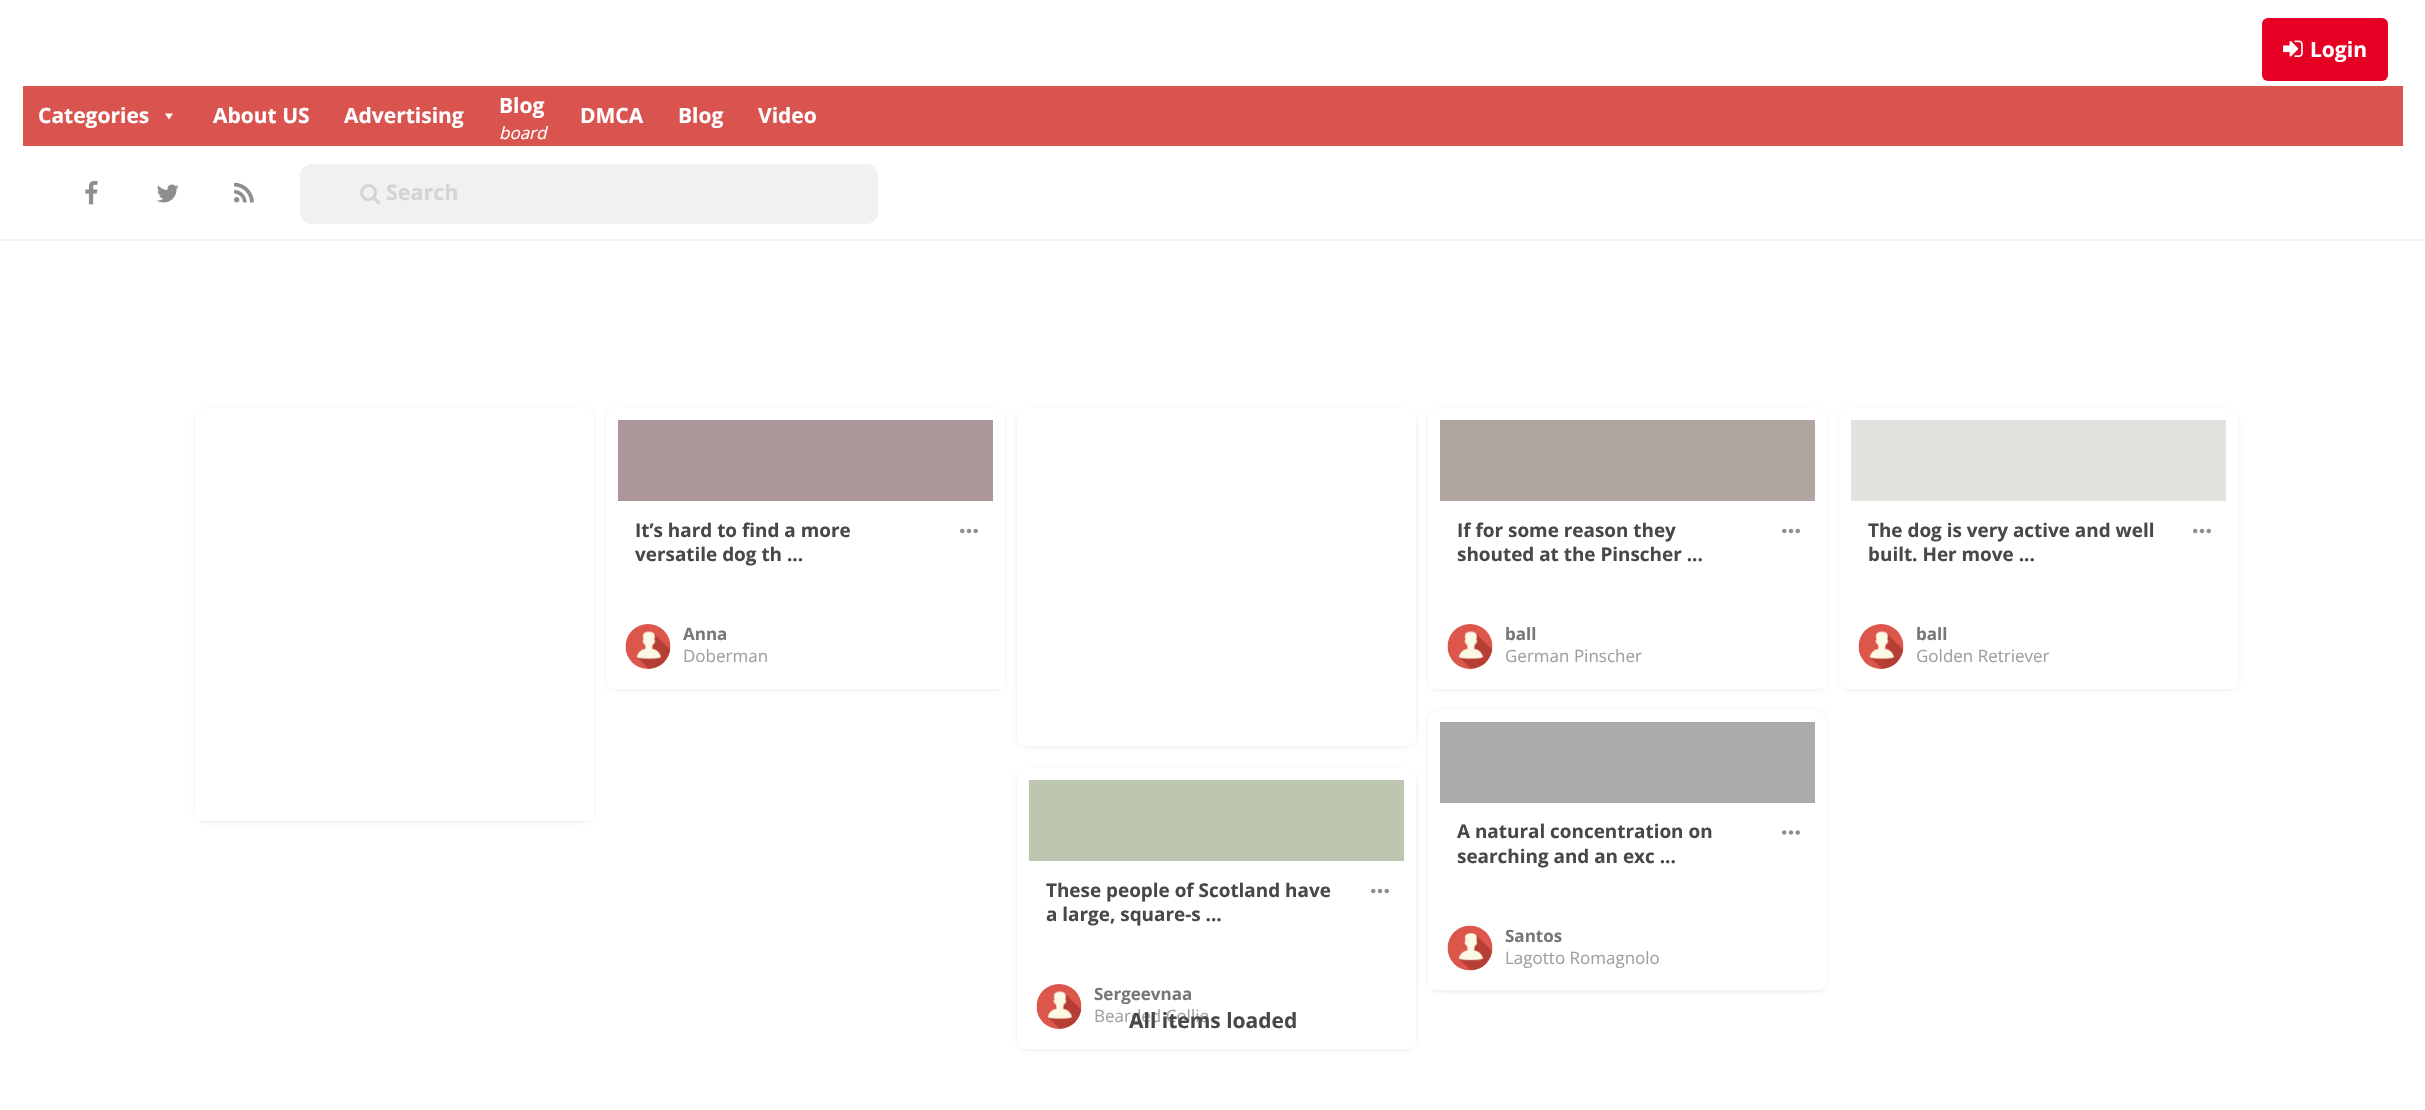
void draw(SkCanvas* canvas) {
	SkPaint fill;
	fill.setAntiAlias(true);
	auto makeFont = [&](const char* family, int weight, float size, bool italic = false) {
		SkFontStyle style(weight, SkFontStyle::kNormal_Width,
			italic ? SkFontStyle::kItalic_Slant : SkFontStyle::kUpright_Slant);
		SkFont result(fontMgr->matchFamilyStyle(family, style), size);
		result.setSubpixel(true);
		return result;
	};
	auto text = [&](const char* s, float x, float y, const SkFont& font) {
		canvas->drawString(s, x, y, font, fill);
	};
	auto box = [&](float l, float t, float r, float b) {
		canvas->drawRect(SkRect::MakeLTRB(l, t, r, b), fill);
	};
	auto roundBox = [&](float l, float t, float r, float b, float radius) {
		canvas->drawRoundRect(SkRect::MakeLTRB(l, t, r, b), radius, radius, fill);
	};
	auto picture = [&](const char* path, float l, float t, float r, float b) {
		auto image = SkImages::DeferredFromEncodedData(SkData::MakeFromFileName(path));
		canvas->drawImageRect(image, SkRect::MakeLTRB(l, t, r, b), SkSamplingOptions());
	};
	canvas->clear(0xFFFFFFFF);
	fill.setColor(0xFFF2F2F2);
	box(0, 239, 2425, 241);
	fill.setColor(0xFFE60023);
	roundBox(2262, 18, 2388, 81, 6);
	picture("image0.png", 2283, 40, 2303, 57);
	fill.setColor(0xFFD9534F);
	box(23, 86, 2403, 146);
	fill.setColor(0xFFFFFFFF);
	canvas->drawPath(SkPathBuilder().moveTo(173, 113.5f).lineTo(169, 119.5f).lineTo(165, 113.5f).close().detach(), fill);
	picture("image1.png", 85, 180, 98, 205);
	picture("image2.png", 156, 184, 179, 203);
	picture("image3.png", 234, 182, 254, 203);
	fill.setColor(0xFFF1F1F1);
	roundBox(300, 164, 878, 224, 12);
	picture("image4.png", 360, 184, 380, 204);
	fill.setColor(0x14000000);
	fill.setMaskFilter(SkMaskFilter::MakeBlur(kNormal_SkBlurStyle, 2));
	canvas->drawRoundRect(SkRect::MakeLTRB(195, 410, 594, 822), 12, 12, fill);
	fill.setMaskFilter(nullptr);
	fill.setColor(0xFFFFFFFF);
	canvas->drawPath(SkPathBuilder().moveTo(207, 408).lineTo(582, 408).cubicTo(588.5f, 408, 594, 413.5f, 594, 420).lineTo(594, 813).cubicTo(594, 817.5f, 590.5f, 821, 586, 821).lineTo(203, 821).cubicTo(198.5f, 821, 195, 817.5f, 195, 813).lineTo(195, 420).cubicTo(195, 413.5f, 200.5f, 408, 207, 408).close().detach(), fill);
	fill.setColor(0x14000000);
	fill.setMaskFilter(SkMaskFilter::MakeBlur(kNormal_SkBlurStyle, 2));
	canvas->drawRoundRect(SkRect::MakeLTRB(606, 410, 1005, 690), 12, 12, fill);
	fill.setMaskFilter(nullptr);
	fill.setColor(0xFFFFFFFF);
	canvas->drawPath(SkPathBuilder().moveTo(618, 408).lineTo(993, 408).cubicTo(999.5f, 408, 1005, 413.5f, 1005, 420).lineTo(1005, 681).cubicTo(1005, 685.5f, 1001.5f, 689, 997, 689).lineTo(614, 689).cubicTo(609.5f, 689, 606, 685.5f, 606, 681).lineTo(606, 420).cubicTo(606, 413.5f, 611.5f, 408, 618, 408).close().detach(), fill);
	fill.setColor(0xFFAB9799);
	box(618, 420, 993, 501);
	picture("image5.png", 960, 528, 978, 534);
	picture("image6.png", 625, 624, 671, 669);
	fill.setColor(0x14000000);
	fill.setMaskFilter(SkMaskFilter::MakeBlur(kNormal_SkBlurStyle, 2));
	canvas->drawRoundRect(SkRect::MakeLTRB(1017, 410, 1416, 747), 12, 12, fill);
	fill.setMaskFilter(nullptr);
	fill.setColor(0xFFFFFFFF);
	canvas->drawPath(SkPathBuilder().moveTo(1029, 408).lineTo(1404, 408).cubicTo(1410.5f, 408, 1416, 413.5f, 1416, 420).lineTo(1416, 738).cubicTo(1416, 742.5f, 1412.5f, 746, 1408, 746).lineTo(1025, 746).cubicTo(1020.5f, 746, 1017, 742.5f, 1017, 738).lineTo(1017, 420).cubicTo(1017, 413.5f, 1022.5f, 408, 1029, 408).close().detach(), fill);
	fill.setColor(0x14000000);
	fill.setMaskFilter(SkMaskFilter::MakeBlur(kNormal_SkBlurStyle, 2));
	canvas->drawRoundRect(SkRect::MakeLTRB(1428, 410, 1827, 690), 12, 12, fill);
	fill.setMaskFilter(nullptr);
	fill.setColor(0xFFFFFFFF);
	canvas->drawPath(SkPathBuilder().moveTo(1440, 408).lineTo(1815, 408).cubicTo(1821.5f, 408, 1827, 413.5f, 1827, 420).lineTo(1827, 681).cubicTo(1827, 685.5f, 1823.5f, 689, 1819, 689).lineTo(1436, 689).cubicTo(1431.5f, 689, 1428, 685.5f, 1428, 681).lineTo(1428, 420).cubicTo(1428, 413.5f, 1433.5f, 408, 1440, 408).close().detach(), fill);
	fill.setColor(0xFFB0A5A0);
	box(1440, 420, 1815, 501);
	picture("image5.png", 1782, 528, 1800, 534);
	picture("image6.png", 1447, 624, 1493, 669);
	fill.setColor(0x14000000);
	fill.setMaskFilter(SkMaskFilter::MakeBlur(kNormal_SkBlurStyle, 2));
	canvas->drawRoundRect(SkRect::MakeLTRB(1839, 410, 2238, 690), 12, 12, fill);
	fill.setMaskFilter(nullptr);
	fill.setColor(0xFFFFFFFF);
	canvas->drawPath(SkPathBuilder().moveTo(1851, 408).lineTo(2226, 408).cubicTo(2232.5f, 408, 2238, 413.5f, 2238, 420).lineTo(2238, 681).cubicTo(2238, 685.5f, 2234.5f, 689, 2230, 689).lineTo(1847, 689).cubicTo(1842.5f, 689, 1839, 685.5f, 1839, 681).lineTo(1839, 420).cubicTo(1839, 413.5f, 1844.5f, 408, 1851, 408).close().detach(), fill);
	fill.setColor(0xFFE4E2DF);
	box(1851, 420, 2226, 501);
	picture("image5.png", 2193, 528, 2211, 534);
	picture("image7.png", 1858, 624, 1904, 669);
	fill.setColor(0x14000000);
	fill.setMaskFilter(SkMaskFilter::MakeBlur(kNormal_SkBlurStyle, 2));
	canvas->drawRoundRect(SkRect::MakeLTRB(1017, 770, 1416, 1050), 12, 12, fill);
	fill.setMaskFilter(nullptr);
	fill.setColor(0xFFFFFFFF);
	canvas->drawPath(SkPathBuilder().moveTo(1029, 768).lineTo(1404, 768).cubicTo(1410.5f, 768, 1416, 773.5f, 1416, 780).lineTo(1416, 1041).cubicTo(1416, 1045.5f, 1412.5f, 1049, 1408, 1049).lineTo(1025, 1049).cubicTo(1020.5f, 1049, 1017, 1045.5f, 1017, 1041).lineTo(1017, 780).cubicTo(1017, 773.5f, 1022.5f, 768, 1029, 768).close().detach(), fill);
	fill.setColor(0xFFBDC6B0);
	box(1029, 780, 1404, 861);
	picture("image5.png", 1371, 888, 1389, 894);
	picture("image8.png", 1036, 984, 1082, 1029);
	fill.setColor(0x14000000);
	fill.setMaskFilter(SkMaskFilter::MakeBlur(kNormal_SkBlurStyle, 2));
	canvas->drawRoundRect(SkRect::MakeLTRB(1428, 711, 1827, 992), 12, 12, fill);
	fill.setMaskFilter(nullptr);
	fill.setColor(0xFFFFFFFF);
	canvas->drawPath(SkPathBuilder().moveTo(1440, 710).lineTo(1815, 710).cubicTo(1821.5f, 710, 1827, 715.5f, 1827, 722).lineTo(1827, 982).cubicTo(1827, 986.5f, 1823.5f, 990, 1819, 990).lineTo(1436, 990).cubicTo(1431.5f, 990, 1428, 986.5f, 1428, 982).lineTo(1428, 722).cubicTo(1428, 715.5f, 1433.5f, 710, 1440, 710).close().detach(), fill);
	fill.setColor(0xFFAAABAD);
	box(1440, 722, 1815, 803);
	picture("image9.png", 1782, 830, 1800, 835);
	picture("image10.png", 1447, 925, 1493, 971);
	auto font1 = makeFont("Open Sans", 700, 21);
	fill.setColor(0xFFFFFFFF);
	text("Login", 2310, 57, font1);
	text("Categories", 38, 123, font1);
	text("About US", 213, 123, font1);
	text("Advertising", 344, 123, font1);
	text("Blog", 499, 113, font1);
	auto font2 = makeFont("Open Sans", 400, 17, true);
	text("board", 499, 139, font2);
	text("DMCA", 580, 123, font1);
	text("Blog", 678, 123, font1);
	text("Video", 758, 123, font1);
	auto font3 = makeFont("Open Sans", 700, 21.5f);
	fill.setColor(0xFFD4D4D4);
	text("Search", 386, 200, font3);
	auto font4 = makeFont("Open Sans", 700, 18.9f);
	fill.setColor(0xFF484848);
	text("It’s hard to find a more", 635, 537, font4);
	text("versatile dog th ...", 635, 561, font4);
	auto font5 = makeFont("Open Sans", 700, 17);
	fill.setColor(0xFF777777);
	text("Anna", 683, 640, font5);
	auto font6 = makeFont("Open Sans", 400, 17);
	fill.setColor(0xFF9F9F9F);
	text("Doberman", 683, 662, font6);
	fill.setColor(0xFF484848);
	text("If for some reason they", 1457, 537, font4);
	text("shouted at the Pinscher ...", 1457, 561, font4);
	fill.setColor(0xFF777777);
	text("ball", 1505, 640, font5);
	fill.setColor(0xFF9F9F9F);
	text("German Pinscher", 1505, 662, font6);
	fill.setColor(0xFF484848);
	text("The dog is very active and well", 1868, 537, font4);
	text("built. Her move ...", 1868, 561, font4);
	fill.setColor(0xFF777777);
	text("ball", 1916, 640, font5);
	fill.setColor(0xFF9F9F9F);
	text("Golden Retriever", 1916, 662, font6);
	fill.setColor(0xFF484848);
	text("These people of Scotland have", 1046, 897, font4);
	text("a large, square-s ...", 1046, 921, font4);
	fill.setColor(0xFF777777);
	text("Sergeevnaa", 1094, 1000, font5);
	fill.setColor(0xFF9F9F9F);
	text("Bearded Collie", 1094, 1022, font6);
	fill.setColor(0xFF484848);
	text("A natural concentration on", 1457, 838, font4);
	text("searching and an exc ...", 1457, 863, font4);
	fill.setColor(0xFF777777);
	text("Santos", 1505, 942, font5);
	fill.setColor(0xFF9F9F9F);
	text("Lagotto Romagnolo", 1505, 964, font6);
	fill.setColor(0xFF484848);
	text("All items loaded", 1129, 1028, font1);
}
